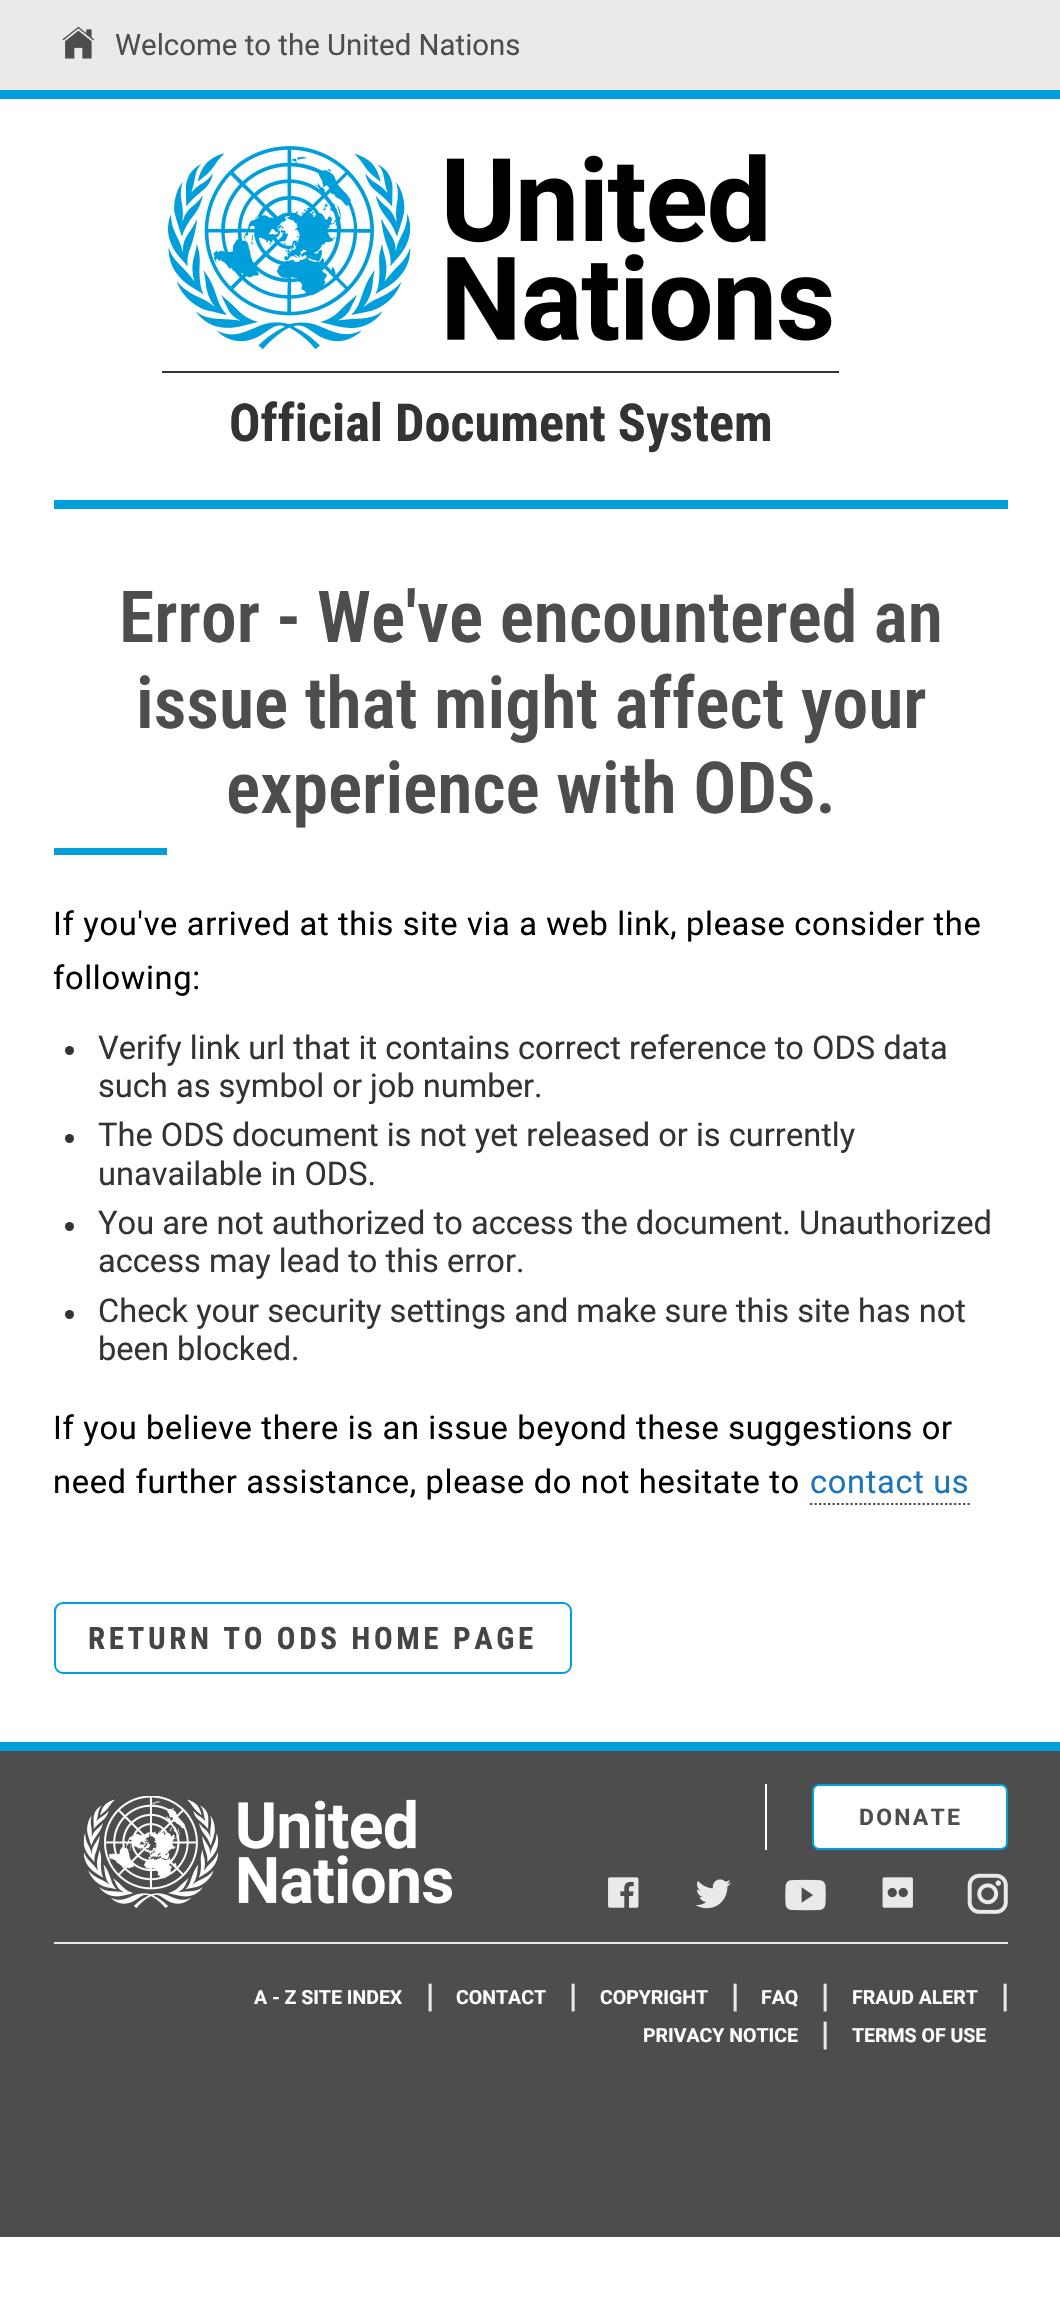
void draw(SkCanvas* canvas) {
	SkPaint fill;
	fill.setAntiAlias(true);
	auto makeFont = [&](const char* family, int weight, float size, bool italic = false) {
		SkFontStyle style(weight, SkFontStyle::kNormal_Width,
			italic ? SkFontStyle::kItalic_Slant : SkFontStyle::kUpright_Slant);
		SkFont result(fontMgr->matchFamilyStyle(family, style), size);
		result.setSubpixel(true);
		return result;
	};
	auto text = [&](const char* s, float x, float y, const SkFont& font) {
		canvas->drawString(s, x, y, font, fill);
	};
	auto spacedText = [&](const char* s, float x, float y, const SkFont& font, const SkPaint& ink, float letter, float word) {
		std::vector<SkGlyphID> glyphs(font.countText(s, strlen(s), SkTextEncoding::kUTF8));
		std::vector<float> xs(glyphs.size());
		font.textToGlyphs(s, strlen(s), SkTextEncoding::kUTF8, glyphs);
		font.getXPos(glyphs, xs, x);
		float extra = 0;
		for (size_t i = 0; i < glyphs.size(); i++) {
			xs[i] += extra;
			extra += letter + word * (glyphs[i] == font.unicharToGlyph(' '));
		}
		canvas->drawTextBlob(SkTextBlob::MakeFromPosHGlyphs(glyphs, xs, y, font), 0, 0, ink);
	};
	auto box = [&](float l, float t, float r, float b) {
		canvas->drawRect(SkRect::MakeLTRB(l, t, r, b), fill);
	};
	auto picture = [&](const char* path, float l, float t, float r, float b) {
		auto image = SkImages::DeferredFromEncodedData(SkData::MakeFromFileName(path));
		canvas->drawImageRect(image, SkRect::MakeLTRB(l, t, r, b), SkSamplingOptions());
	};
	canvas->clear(0xFFFFFFFF);
	fill.setColor(0xFFECE9E9);
	box(0, 0, 1060, 90);
	fill.setColor(0xFF009EDB);
	box(0, 90, 1060, 99);
	picture("image0.png", 62, 26, 95, 59);
	fill.setColor(0xFF333333);
	box(162, 371, 839, 373);
	picture("image1.png", 168, 146, 832, 349);
	fill.setColor(0xFF009EDB);
	box(54, 500, 1008, 509);
	box(54, 848, 167, 855);
	fill.setColor(0xFF333333);
	canvas->drawCircle(69.5f, 1050.5f, 4.5f, fill);
	canvas->drawCircle(69.5f, 1138.5f, 4.5f, fill);
	canvas->drawCircle(69.5f, 1226.5f, 4.5f, fill);
	canvas->drawCircle(69.5f, 1314.5f, 4.5f, fill);
	fill.setStyle(SkPaint::kStroke_Style);
	fill.setStrokeWidth(2.2f);
	fill.setColor(0xFF4D4D4D);
	fill.setPathEffect(SkDashPathEffect::Make({{2.25f, 2.25f}}, 0));
	canvas->drawPath(SkPathBuilder().moveTo(810, 1504).lineTo(970, 1504).detach(), fill);
	fill.setPathEffect(nullptr);
	fill.setStrokeWidth(2);
	fill.setColor(0xFF009EDB);
	canvas->drawRoundRect(SkRect::MakeLTRB(55, 1603, 571, 1673), 8, 8, fill);
	fill.setStyle(SkPaint::kFill_Style);
	fill.setColor(0xFF4D4D4D);
	box(0, 1751, 1060, 2237);
	fill.setColor(0xFF009EDB);
	box(0, 1742, 1060, 1751);
	fill.setColor(0xFFECE9E9);
	box(54, 1942, 1008, 1944);
	picture("image2.png", 83, 1796, 452, 1908);
	fill.setColor(0xFFFFFFFF);
	box(765, 1784, 767, 1850);
	canvas->drawRoundRect(SkRect::MakeLTRB(813, 1785, 1007, 1849), 6, 6, fill);
	fill.setStyle(SkPaint::kStroke_Style);
	fill.setColor(0xFF009EDB);
	canvas->drawRoundRect(SkRect::MakeLTRB(813, 1785, 1007, 1849), 6, 6, fill);
	picture("image3.png", 608, 1877, 639, 1908);
	picture("image4.png", 695, 1879, 731, 1909);
	picture("image5.png", 785, 1879, 826, 1911);
	picture("image6.png", 882, 1877, 913, 1908);
	picture("image7.png", 967, 1873, 1008, 1914);
	auto font1 = makeFont("Roboto", 400, 29.4f);
	fill.setStyle(SkPaint::kFill_Style);
	fill.setColor(0xFF4D4D4D);
	text("Welcome to the United Nations", 115, 55, font1);
	auto font2 = makeFont("Roboto Condensed", 700, 52.25f);
	fill.setColor(0xFF333333);
	text("Official Document System", 229, 441, font2);
	auto font3 = makeFont("Roboto Condensed", 600, 71.75f);
	fill.setColor(0xFF4D4D4D);
	text("Error - We've encountered an", 119, 642, font3);
	text("issue that might affect your", 136, 728, font3);
	text("experience with ODS.", 226, 813, font3);
	auto font4 = makeFont("Roboto", 400, 32.6f);
	fill.setColor(0xFF000000);
	spacedText("If you've arrived at this site via a web link, please consider the", 53, 935, font4, fill, 0.67f, 0);
	spacedText("following:", 53, 989, font4, fill, 0.67f, 0);
	fill.setColor(0xFF333333);
	text("Verify link url that it contains correct reference to ODS data", 98, 1059, font4);
	text("such as symbol or job number.", 98, 1097, font4);
	text("The ODS document is not yet released or is currently", 98, 1146, font4);
	text("unavailable in ODS.", 98, 1185, font4);
	text("You are not authorized to access the document. Unauthorized", 98, 1234, font4);
	text("access may lead to this error.", 98, 1272, font4);
	text("Check your security settings and make sure this site has not", 98, 1322, font4);
	text("been blocked.", 98, 1360, font4);
	fill.setColor(0xFF000000);
	spacedText("If you believe there is an issue beyond these suggestions or", 53, 1439, font4, fill, 0.67f, 0);
	spacedText("need further assistance, please do not hesitate to", 53, 1493, font4, fill, 0.67f, 0);
	fill.setColor(0xFF1B75BB);
	spacedText("contact us", 810, 1493, font4, fill, 0.67f, 0);
	auto font5 = makeFont("Roboto Condensed", 700, 31);
	fill.setColor(0xFF454545);
	spacedText("RETURN TO ODS HOME PAGE", 88, 1649, font5, fill, 3.6f, 0);
	auto font6 = makeFont("Roboto", 700, 23);
	fill.setColor(0xFF4D4D4D);
	spacedText("DONATE", 859, 1825, font6, fill, 2.25f, 0);
	auto font7 = makeFont("Roboto", 700, 19.5f);
	fill.setColor(0xFFFFFFFF);
	text("A - Z SITE INDEX", 254, 2004, font7);
	auto font8 = makeFont("Roboto", 700, 32.6f);
	fill.setColor(0xFFECE9E9);
	text("|", 426, 2007, font8);
	fill.setColor(0xFFFFFFFF);
	text("CONTACT", 456, 2004, font7);
	fill.setColor(0xFFECE9E9);
	text("|", 569, 2007, font8);
	fill.setColor(0xFFFFFFFF);
	text("COPYRIGHT", 600, 2004, font7);
	fill.setColor(0xFFECE9E9);
	text("|", 731, 2007, font8);
	fill.setColor(0xFFFFFFFF);
	text("FAQ", 761, 2004, font7);
	fill.setColor(0xFFECE9E9);
	text("|", 821, 2007, font8);
	fill.setColor(0xFFFFFFFF);
	text("FRAUD ALERT", 852, 2004, font7);
	fill.setColor(0xFFECE9E9);
	text("|", 1001, 2007, font8);
	fill.setColor(0xFFFFFFFF);
	text("PRIVACY NOTICE", 643, 2042, font7);
	fill.setColor(0xFFECE9E9);
	text("|", 821, 2045, font8);
	fill.setColor(0xFFFFFFFF);
	text("TERMS OF USE", 852, 2042, font7);
}
